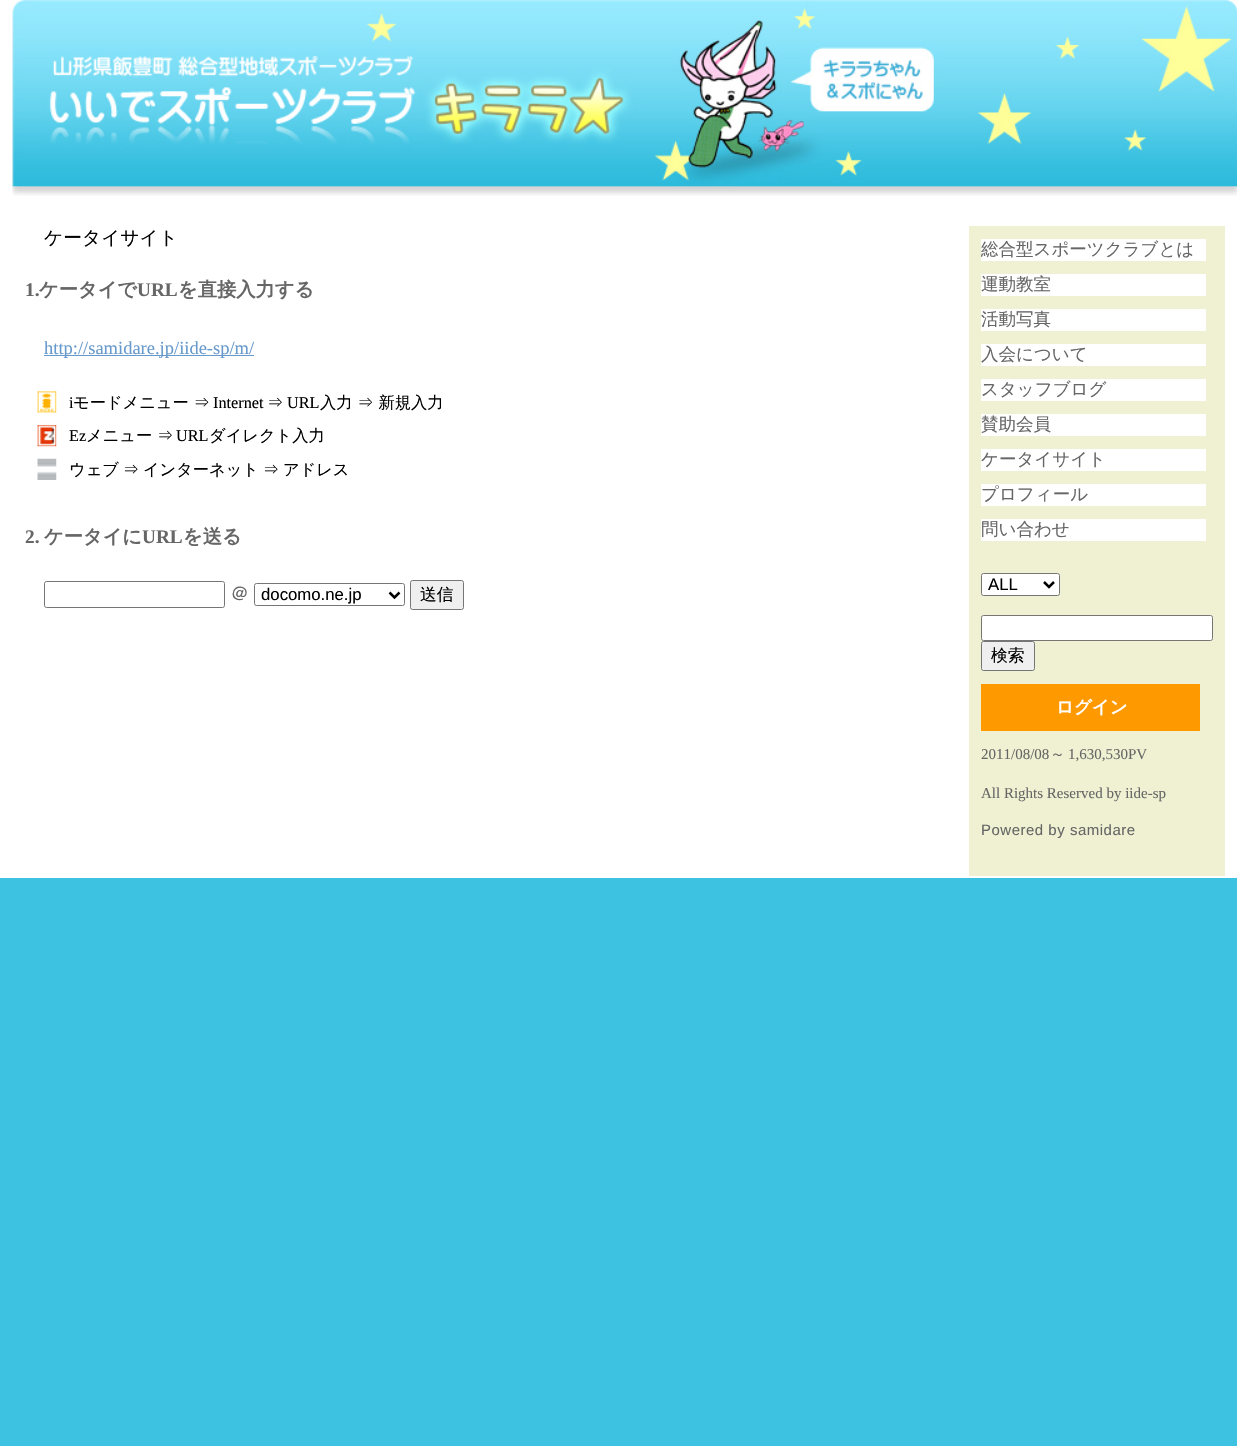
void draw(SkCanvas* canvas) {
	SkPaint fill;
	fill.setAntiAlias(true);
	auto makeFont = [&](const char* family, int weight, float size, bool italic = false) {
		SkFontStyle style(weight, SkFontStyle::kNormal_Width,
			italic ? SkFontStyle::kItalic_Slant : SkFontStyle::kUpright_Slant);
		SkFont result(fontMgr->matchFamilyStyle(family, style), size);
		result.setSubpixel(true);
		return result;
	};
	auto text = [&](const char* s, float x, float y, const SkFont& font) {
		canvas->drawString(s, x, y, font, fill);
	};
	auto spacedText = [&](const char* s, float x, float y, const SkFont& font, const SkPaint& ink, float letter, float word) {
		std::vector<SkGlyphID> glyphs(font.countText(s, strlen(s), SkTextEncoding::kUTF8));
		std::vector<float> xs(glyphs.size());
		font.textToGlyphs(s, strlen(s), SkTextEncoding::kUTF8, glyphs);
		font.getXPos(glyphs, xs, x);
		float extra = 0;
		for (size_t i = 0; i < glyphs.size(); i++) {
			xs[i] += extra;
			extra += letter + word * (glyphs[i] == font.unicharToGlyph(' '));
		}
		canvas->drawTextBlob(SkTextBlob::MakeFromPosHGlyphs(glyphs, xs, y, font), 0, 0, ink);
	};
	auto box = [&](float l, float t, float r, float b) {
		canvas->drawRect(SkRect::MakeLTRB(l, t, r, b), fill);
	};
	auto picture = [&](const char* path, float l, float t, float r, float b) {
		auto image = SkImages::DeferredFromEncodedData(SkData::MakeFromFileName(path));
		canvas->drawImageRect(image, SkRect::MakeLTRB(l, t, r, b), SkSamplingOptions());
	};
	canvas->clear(0xFF3DC2E1);
	fill.setColor(0xFFFFFFFF);
	box(0, 0, 1237, 878);
	picture("image0.png", 12, 0, 1237, 196);
	fill.setColor(0xFF6699CC);
	box(44, 355, 254, 356);
	picture("image1.png", 37, 391, 57, 413);
	picture("image2.png", 37, 425, 57, 447);
	picture("image3.png", 37, 458, 57, 480);
	fill.setStyle(SkPaint::kStroke_Style);
	fill.setStrokeWidth(1);
	fill.setColor(0xFF767676);
	canvas->drawRoundRect(SkRect::MakeLTRB(44.5f, 581.5f, 224.5f, 607.5f), 2, 2, fill);
	canvas->drawRoundRect(SkRect::MakeLTRB(254.5f, 583.5f, 404.5f, 605.5f), 2, 2, fill);
	fill.setStrokeWidth(2.5f);
	fill.setColor(0xFF000000);
	canvas->drawPath(SkPathBuilder().moveTo(389.5f, 592.5f).lineTo(394.5f, 597.5f).lineTo(399.5f, 592.5f).detach(), fill);
	fill.setStyle(SkPaint::kFill_Style);
	fill.setColor(0xFFEFEFEF);
	canvas->drawRoundRect(SkRect::MakeLTRB(410.5f, 580.5f, 463.5f, 609.5f), 2, 2, fill);
	fill.setStyle(SkPaint::kStroke_Style);
	fill.setStrokeWidth(1);
	fill.setColor(0xFF767676);
	canvas->drawRoundRect(SkRect::MakeLTRB(410.5f, 580.5f, 463.5f, 609.5f), 2, 2, fill);
	fill.setStyle(SkPaint::kFill_Style);
	fill.setColor(0xFFF0F1D2);
	box(969, 226, 1225, 876);
	fill.setColor(0xFFFFFFFF);
	box(981, 239, 1206, 261);
	box(981, 274, 1206, 296);
	box(981, 309, 1206, 331);
	box(981, 344, 1206, 366);
	box(981, 379, 1206, 401);
	box(981, 414, 1206, 436);
	box(981, 449, 1206, 471);
	box(981, 484, 1206, 506);
	box(981, 519, 1206, 541);
	canvas->drawRoundRect(SkRect::MakeLTRB(981.5f, 573.5f, 1059.5f, 595.5f), 2, 2, fill);
	fill.setStyle(SkPaint::kStroke_Style);
	fill.setColor(0xFF767676);
	canvas->drawRoundRect(SkRect::MakeLTRB(981.5f, 573.5f, 1059.5f, 595.5f), 2, 2, fill);
	fill.setStrokeWidth(2.5f);
	fill.setColor(0xFF000000);
	canvas->drawPath(SkPathBuilder().moveTo(1044, 582).lineTo(1049, 587).lineTo(1054, 582).detach(), fill);
	fill.setStyle(SkPaint::kFill_Style);
	fill.setColor(0xFFFFFFFF);
	canvas->drawRoundRect(SkRect::MakeLTRB(981.5f, 615.5f, 1212.5f, 640.5f), 2, 2, fill);
	fill.setStyle(SkPaint::kStroke_Style);
	fill.setStrokeWidth(1);
	fill.setColor(0xFF767676);
	canvas->drawRoundRect(SkRect::MakeLTRB(981.5f, 615.5f, 1212.5f, 640.5f), 2, 2, fill);
	fill.setStyle(SkPaint::kFill_Style);
	fill.setColor(0xFFEFEFEF);
	canvas->drawRoundRect(SkRect::MakeLTRB(981.5f, 641.5f, 1034.5f, 670.5f), 2, 2, fill);
	fill.setStyle(SkPaint::kStroke_Style);
	fill.setColor(0xFF767676);
	canvas->drawRoundRect(SkRect::MakeLTRB(981.5f, 641.5f, 1034.5f, 670.5f), 2, 2, fill);
	fill.setStyle(SkPaint::kFill_Style);
	fill.setColor(0xFFFF9900);
	box(981, 684, 1200, 731);
	auto font1 = makeFont("WenQuanYi Zen Hei", 500, 18.75f);
	fill.setColor(0xFF000000);
	text("ケータイサイト", 44, 244, font1);
	auto font2 = makeFont("Liberation Serif", 700, 19.25f);
	fill.setColor(0xFF666666);
	text("1.", 25, 296, font2);
	auto font3 = makeFont("WenQuanYi Zen Hei", 700, 19.25f);
	text("ケータイで", 39, 296, font3);
	text("URL", 137, 296, font2);
	text("を直接入力する", 178, 296, font3);
	auto font4 = makeFont("Liberation Serif", 400, 18.5f);
	fill.setColor(0xFF6699CC);
	text("http://samidare.jp/iide-sp/m/", 44, 354, font4);
	auto font5 = makeFont("Liberation Serif", 400, 16.25f);
	fill.setColor(0xFF000000);
	text("i", 69, 408, font5);
	auto font6 = makeFont("WenQuanYi Zen Hei", 500, 16.25f);
	text("モードメニュー ⇒", 73, 408, font6);
	text("Internet", 213, 408, font5);
	text("⇒", 267, 408, font6);
	text("URL", 287, 408, font5);
	text("入力 ⇒ 新規入力", 320, 408, font6);
	text("Ez", 69, 441, font5);
	text("メニュー ⇒", 86, 441, font6);
	text("URL", 176, 441, font5);
	text("ダイレクト入力", 209, 441, font6);
	spacedText("ウェブ ⇒ インターネット ⇒ アドレス", 69, 475, font6, fill, 0, -1);
	fill.setColor(0xFF666666);
	text("2.", 25, 543, font2);
	text("ケータイに", 44, 543, font3);
	text("URL", 142, 543, font2);
	text("を送る", 183, 543, font3);
	auto font7 = makeFont("WenQuanYi Zen Hei", 500, 19.25f);
	text("＠", 230, 600, font7);
	auto font8 = makeFont("Liberation Sans", 400, 16.75f);
	fill.setColor(0xFF000000);
	text("docomo.ne.jp", 261, 600, font8);
	auto font9 = makeFont("WenQuanYi Zen Hei", 500, 16.75f);
	text("送信", 420, 600, font9);
	auto font10 = makeFont("WenQuanYi Zen Hei", 500, 17.5f);
	fill.setColor(0xFF666666);
	text("総合型スポーツクラブとは", 981, 255, font10);
	text("運動教室", 981, 290, font10);
	text("活動写真", 981, 325, font10);
	text("入会について", 981, 360, font10);
	text("スタッフブログ", 981, 395, font10);
	text("賛助会員", 981, 430, font10);
	text("ケータイサイト", 981, 465, font10);
	text("プロフィール", 981, 500, font10);
	text("問い合わせ", 981, 535, font10);
	fill.setColor(0xFF000000);
	text("ALL", 988, 590, font8);
	text("検索", 991, 661, font9);
	auto font11 = makeFont("WenQuanYi Zen Hei", 700, 17.5f);
	fill.setColor(0xFFFFFFFF);
	text("ログイン", 1056, 713, font11);
	auto font12 = makeFont("Liberation Serif", 400, 15);
	fill.setColor(0xFF666666);
	text("2011/08/08", 981, 759, font12);
	auto font13 = makeFont("WenQuanYi Zen Hei", 500, 15);
	text("～", 1050, 759, font13);
	text("1,630,530PV", 1068, 759, font12);
	text("All Rights Reserved by iide-sp", 981, 798, font12);
	auto font14 = makeFont("Liberation Sans", 400, 15);
	spacedText("Powered by samidare", 981, 835, font14, fill, 0.5f, 0);
}
